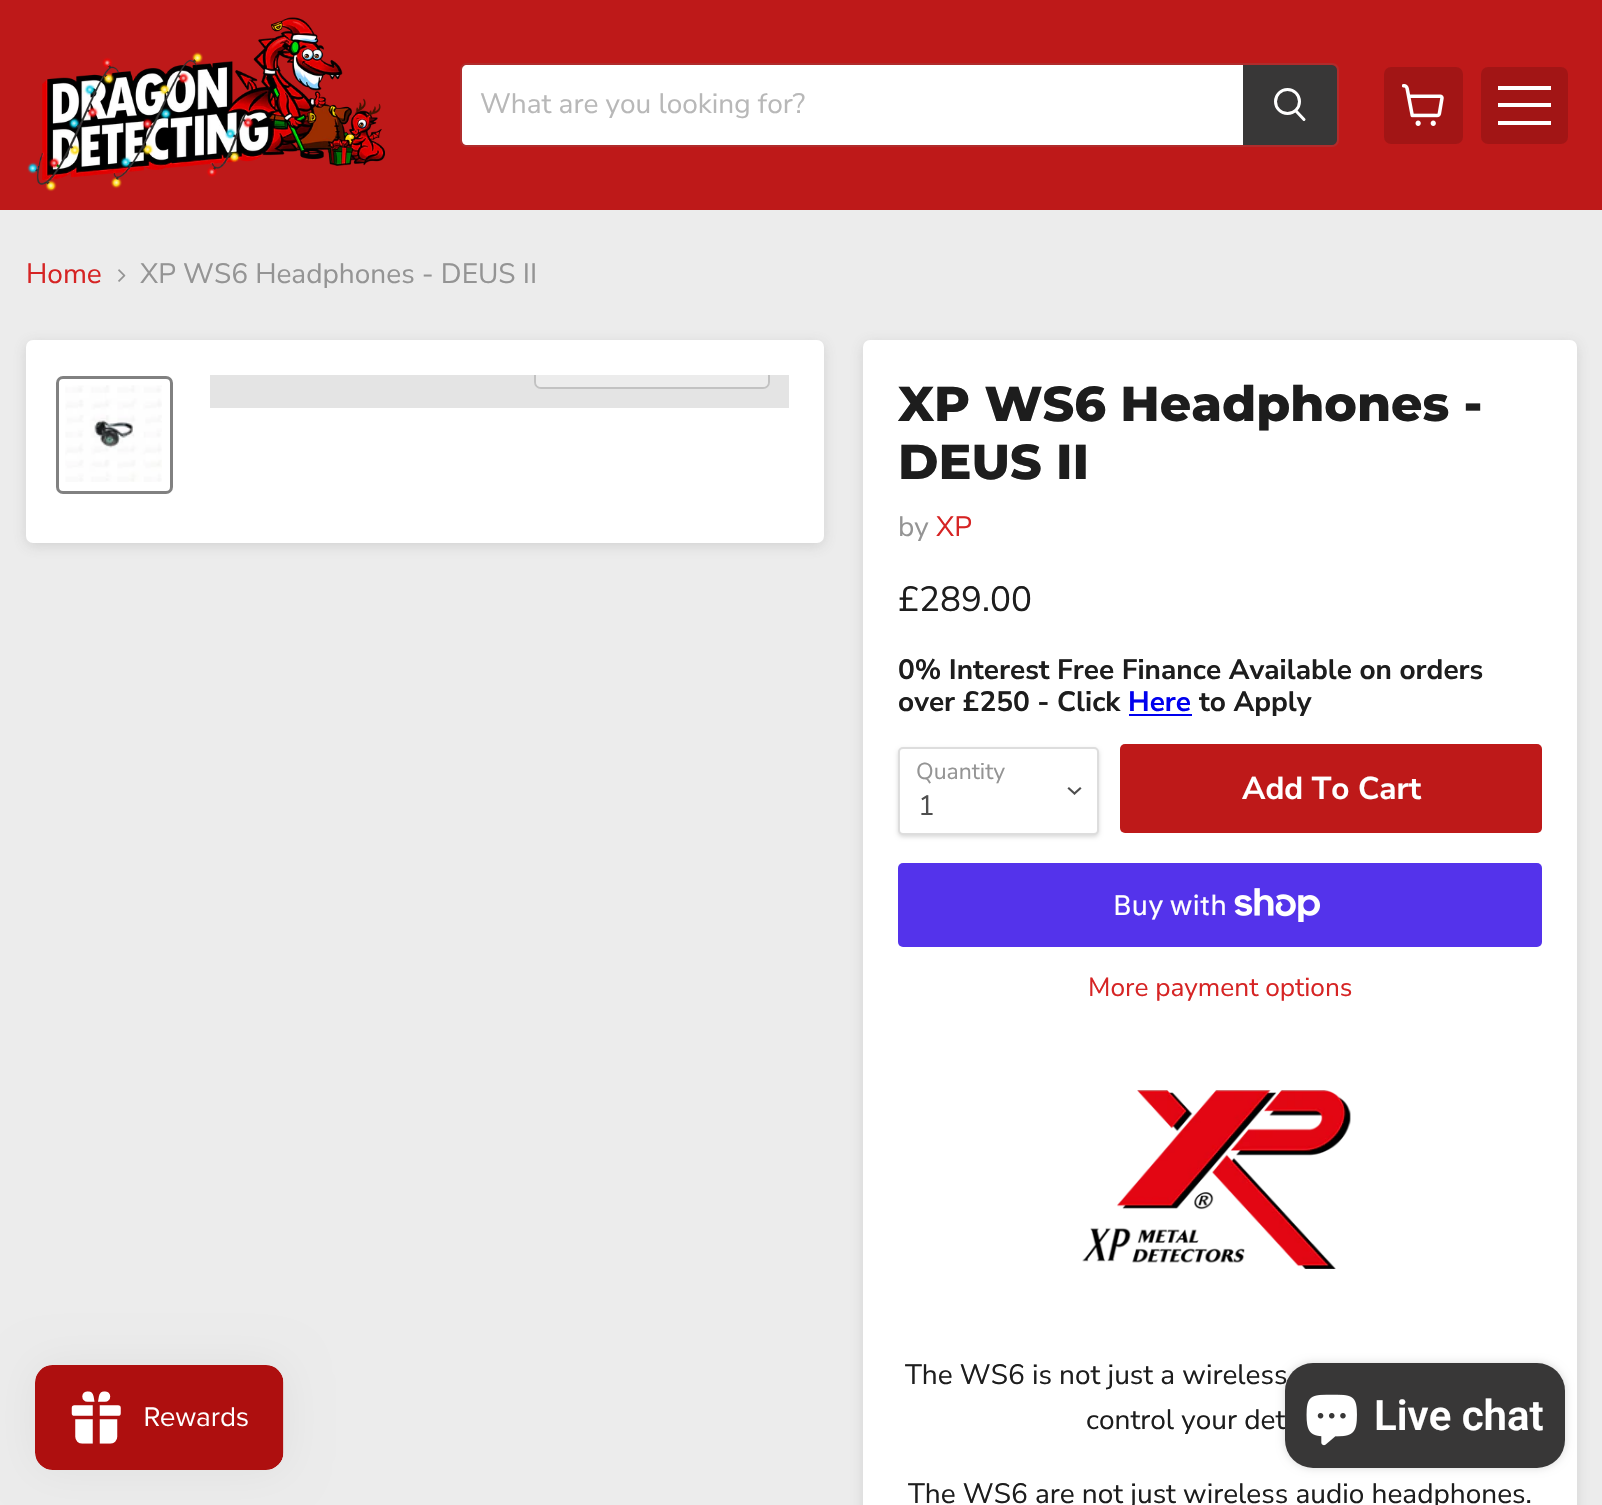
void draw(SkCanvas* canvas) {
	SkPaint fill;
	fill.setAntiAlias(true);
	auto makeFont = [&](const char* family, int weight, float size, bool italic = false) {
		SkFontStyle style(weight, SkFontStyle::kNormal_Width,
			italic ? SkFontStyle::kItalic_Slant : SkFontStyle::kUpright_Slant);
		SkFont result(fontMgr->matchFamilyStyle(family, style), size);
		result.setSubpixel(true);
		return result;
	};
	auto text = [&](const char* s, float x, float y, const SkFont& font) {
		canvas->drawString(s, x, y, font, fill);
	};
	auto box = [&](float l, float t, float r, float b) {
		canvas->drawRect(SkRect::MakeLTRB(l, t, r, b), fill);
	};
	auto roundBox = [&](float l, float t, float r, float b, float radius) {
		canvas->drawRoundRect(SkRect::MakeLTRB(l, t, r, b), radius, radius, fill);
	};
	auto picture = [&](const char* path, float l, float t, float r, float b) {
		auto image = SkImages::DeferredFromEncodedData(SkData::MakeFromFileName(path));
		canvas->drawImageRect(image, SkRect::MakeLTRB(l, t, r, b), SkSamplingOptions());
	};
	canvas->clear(0xFFECECEC);
	fill.setColor(0xFFBE1919);
	box(0, 0, 1602, 210);
	picture("image0.png", 27, 17, 385, 192);
	fill.setStyle(SkPaint::kStroke_Style);
	fill.setStrokeWidth(2);
	fill.setColor(0x33767676);
	canvas->drawRoundRect(SkRect::MakeLTRB(461, 64, 1338, 146), 6, 6, fill);
	fill.setStyle(SkPaint::kFill_Style);
	fill.setColor(0xFFFFFFFF);
	canvas->drawPath(SkPathBuilder().moveTo(467, 65).lineTo(1243, 65).lineTo(1243, 145).lineTo(467, 145).cubicTo(464, 145, 462, 143, 462, 140).lineTo(462, 70).cubicTo(462, 67, 464, 65, 467, 65).close().detach(), fill);
	fill.setColor(0xFF383737);
	canvas->drawPath(SkPathBuilder().moveTo(1244, 66).lineTo(1332, 66).cubicTo(1334, 66, 1336, 68, 1336, 70).lineTo(1336, 140).cubicTo(1336, 142, 1334, 144, 1332, 144).lineTo(1244, 144).close().detach(), fill);
	fill.setStyle(SkPaint::kStroke_Style);
	canvas->drawPath(SkPathBuilder().moveTo(1244, 66).lineTo(1332, 66).cubicTo(1334, 66, 1336, 68, 1336, 70).lineTo(1336, 140).cubicTo(1336, 142, 1334, 144, 1332, 144).lineTo(1244, 144).close().detach(), fill);
	fill.setStrokeWidth(3);
	fill.setStrokeCap(SkPaint::kRound_Cap);
	fill.setColor(0xFFFFFFFF);
	canvas->drawPath(SkPathBuilder().moveTo(1304, 119.5f).lineTo(1296, 111).detach(), fill);
	fill.setStrokeCap(SkPaint::kButt_Cap);
	canvas->drawCircle(1287.5f, 101.5f, 12, fill);
	fill.setStyle(SkPaint::kFill_Style);
	fill.setColor(0xFFA21515);
	roundBox(1384, 67, 1463, 144, 7);
	picture("image1.png", 1402, 84, 1444, 126);
	roundBox(1481, 67, 1568, 144, 7);
	fill.setColor(0xFFFFFFFF);
	box(1498, 86, 1551, 90);
	box(1498, 103, 1551, 107);
	box(1498, 121, 1551, 125);
	picture("image2.png", 118, 269, 126, 282);
	fill.setColor(0x33636363);
	fill.setMaskFilter(SkMaskFilter::MakeBlur(kNormal_SkBlurStyle, 7));
	canvas->drawRoundRect(SkRect::MakeLTRB(26, 343, 824, 546), 7, 7, fill);
	fill.setMaskFilter(nullptr);
	fill.setColor(0xFFFFFFFF);
	roundBox(26, 340, 824, 543, 7);
	fill.setStyle(SkPaint::kStroke_Style);
	fill.setColor(0xFF818181);
	canvas->drawRoundRect(SkRect::MakeLTRB(57.5f, 377.5f, 171.5f, 492.5f), 5.5f, 5.5f, fill);
	picture("image3.png", 65, 385, 162, 482);
	fill.setStyle(SkPaint::kFill_Style);
	fill.setColor(0xFFE4E4E4);
	box(210, 375, 789, 408);
	canvas->save();
	canvas->clipRect(SkRect::MakeLTRB(210, 375, 789, 408));
	fill.setStyle(SkPaint::kStroke_Style);
	fill.setStrokeWidth(2);
	fill.setColor(0xFFC2C2C2);
	canvas->drawRoundRect(SkRect::MakeLTRB(535, 337, 769, 388), 6, 6, fill);
	canvas->restore();
	fill.setStyle(SkPaint::kFill_Style);
	fill.setColor(0xE6ECECEC);
	canvas->drawPath(SkPathBuilder().moveTo(536, 375).lineTo(768, 375).lineTo(768, 382).cubicTo(768, 385, 766, 387, 763, 387).lineTo(541, 387).cubicTo(538, 387, 536, 385, 536, 382).close().detach(), fill);
	fill.setColor(0x33636363);
	fill.setMaskFilter(SkMaskFilter::MakeBlur(kNormal_SkBlurStyle, 7));
	canvas->drawRoundRect(SkRect::MakeLTRB(863, 343, 1577, 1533), 7, 7, fill);
	fill.setMaskFilter(nullptr);
	fill.setColor(0xFFFFFFFF);
	roundBox(863, 340, 1577, 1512, 7);
	fill.setColor(0xFF0000EE);
	box(1129, 714, 1192, 716);
	fill.setColor(0x26000000);
	fill.setMaskFilter(SkMaskFilter::MakeBlur(kNormal_SkBlurStyle, 2));
	canvas->drawRoundRect(SkRect::MakeLTRB(898, 749, 1099, 837), 5, 5, fill);
	fill.setMaskFilter(nullptr);
	fill.setColor(0xFFFFFFFF);
	canvas->drawRoundRect(SkRect::MakeLTRB(899, 748, 1098, 834), 4, 4, fill);
	fill.setStyle(SkPaint::kStroke_Style);
	fill.setColor(0xFFDDDDDD);
	canvas->drawRoundRect(SkRect::MakeLTRB(899, 748, 1098, 834), 4, 4, fill);
	fill.setStrokeWidth(2.2f);
	fill.setStrokeCap(SkPaint::kSquare_Cap);
	fill.setColor(0xFF4E4E4E);
	canvas->drawPath(SkPathBuilder().moveTo(1074.5f, 793.5f).lineTo(1080, 788.5f).moveTo(1074.5f, 793.5f).lineTo(1069, 788.5f).detach(), fill);
	fill.setStyle(SkPaint::kFill_Style);
	fill.setColor(0xFFBE1919);
	roundBox(1120, 744, 1542, 833, 5);
	fill.setColor(0xFF5433EB);
	roundBox(898, 863, 1542, 947, 5);
	picture("image4.png", 1234, 888, 1320, 922);
	picture("image5.png", 1082, 1090, 1351, 1269);
	fill.setColor(0x0D000000);
	fill.setMaskFilter(SkMaskFilter::MakeBlur(kNormal_SkBlurStyle, 22));
	canvas->drawRoundRect(SkRect::MakeLTRB(35, 1365, 284, 1470), 18, 18, fill);
	fill.setMaskFilter(nullptr);
	picture("image6.png", 35, 1365, 284, 1470);
	fill.setColor(0x26000000);
	fill.setMaskFilter(SkMaskFilter::MakeBlur(kNormal_SkBlurStyle, 4.5f));
	canvas->drawRoundRect(SkRect::MakeLTRB(1285, 1363, 1565, 1468), 28, 28, fill);
	fill.setMaskFilter(nullptr);
	auto font1 = makeFont("Nunito Sans", 400, 28);
	fill.setColor(0xFFB8B8B8);
	text("What are you looking for?", 480, 113, font1);
	fill.setColor(0xFFD62424);
	text("Home", 26, 283, font1);
	fill.setColor(0xFF949494);
	text("XP WS6 Headphones - DEUS II", 140, 283, font1);
	auto font2 = makeFont("Montserrat", 800, 49);
	fill.setColor(0xFF1D1D1D);
	text("XP WS6 Headphones -", 898, 421, font2);
	text("DEUS II", 898, 479, font2);
	fill.setColor(0xFF949494);
	text("by", 898, 536, font1);
	fill.setColor(0xFFD62424);
	text("XP", 936, 536, font1);
	auto font3 = makeFont("Nunito Sans", 400, 35);
	fill.setColor(0xFF1D1D1D);
	text("£289.00", 898, 611, font3);
	auto font4 = makeFont("Nunito Sans", 700, 28);
	text("0% Interest Free Finance Available on orders", 898, 679, font4);
	text("over £250 - Click", 898, 711, font4);
	fill.setColor(0xFF0000EE);
	text("Here", 1128, 711, font4);
	fill.setColor(0xFF1D1D1D);
	text("to Apply", 1199, 711, font4);
	auto font5 = makeFont("Nunito Sans", 400, 23);
	fill.setColor(0xFF949494);
	text("Quantity", 916, 779, font5);
	fill.setColor(0xFF4E4E4E);
	text("1", 918, 815, font1);
	auto font6 = makeFont("Nunito Sans", 700, 31.5f);
	fill.setColor(0xFFFFFFFF);
	text("Add To Cart", 1242, 799, font6);
	auto font7 = makeFont("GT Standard", 400, 28);
	text("Buy with", 1113, 915, font7);
	auto font8 = makeFont("Nunito Sans", 400, 26.25f);
	fill.setColor(0xFFD62424);
	text("More payment options", 1088, 996, font8);
	fill.setColor(0xFF1D1D1D);
	text("The WS6 is not just a wireless", 905, 1384, font1);
	text("control your det", 1086, 1429, font1);
	text("The WS6 are not just wireless audio headphones.", 908, 1503, font1);
	fill.setColor(0xFF383737);
	roundBox(1285, 1363, 1565, 1468, 28);
	picture("image7.png", 1306, 1394, 1357, 1446);
	auto font9 = makeFont("Roboto", 600, 42);
	fill.setColor(0xFFFFFFFF);
	text("Live chat", 1374, 1430, font9);
}
